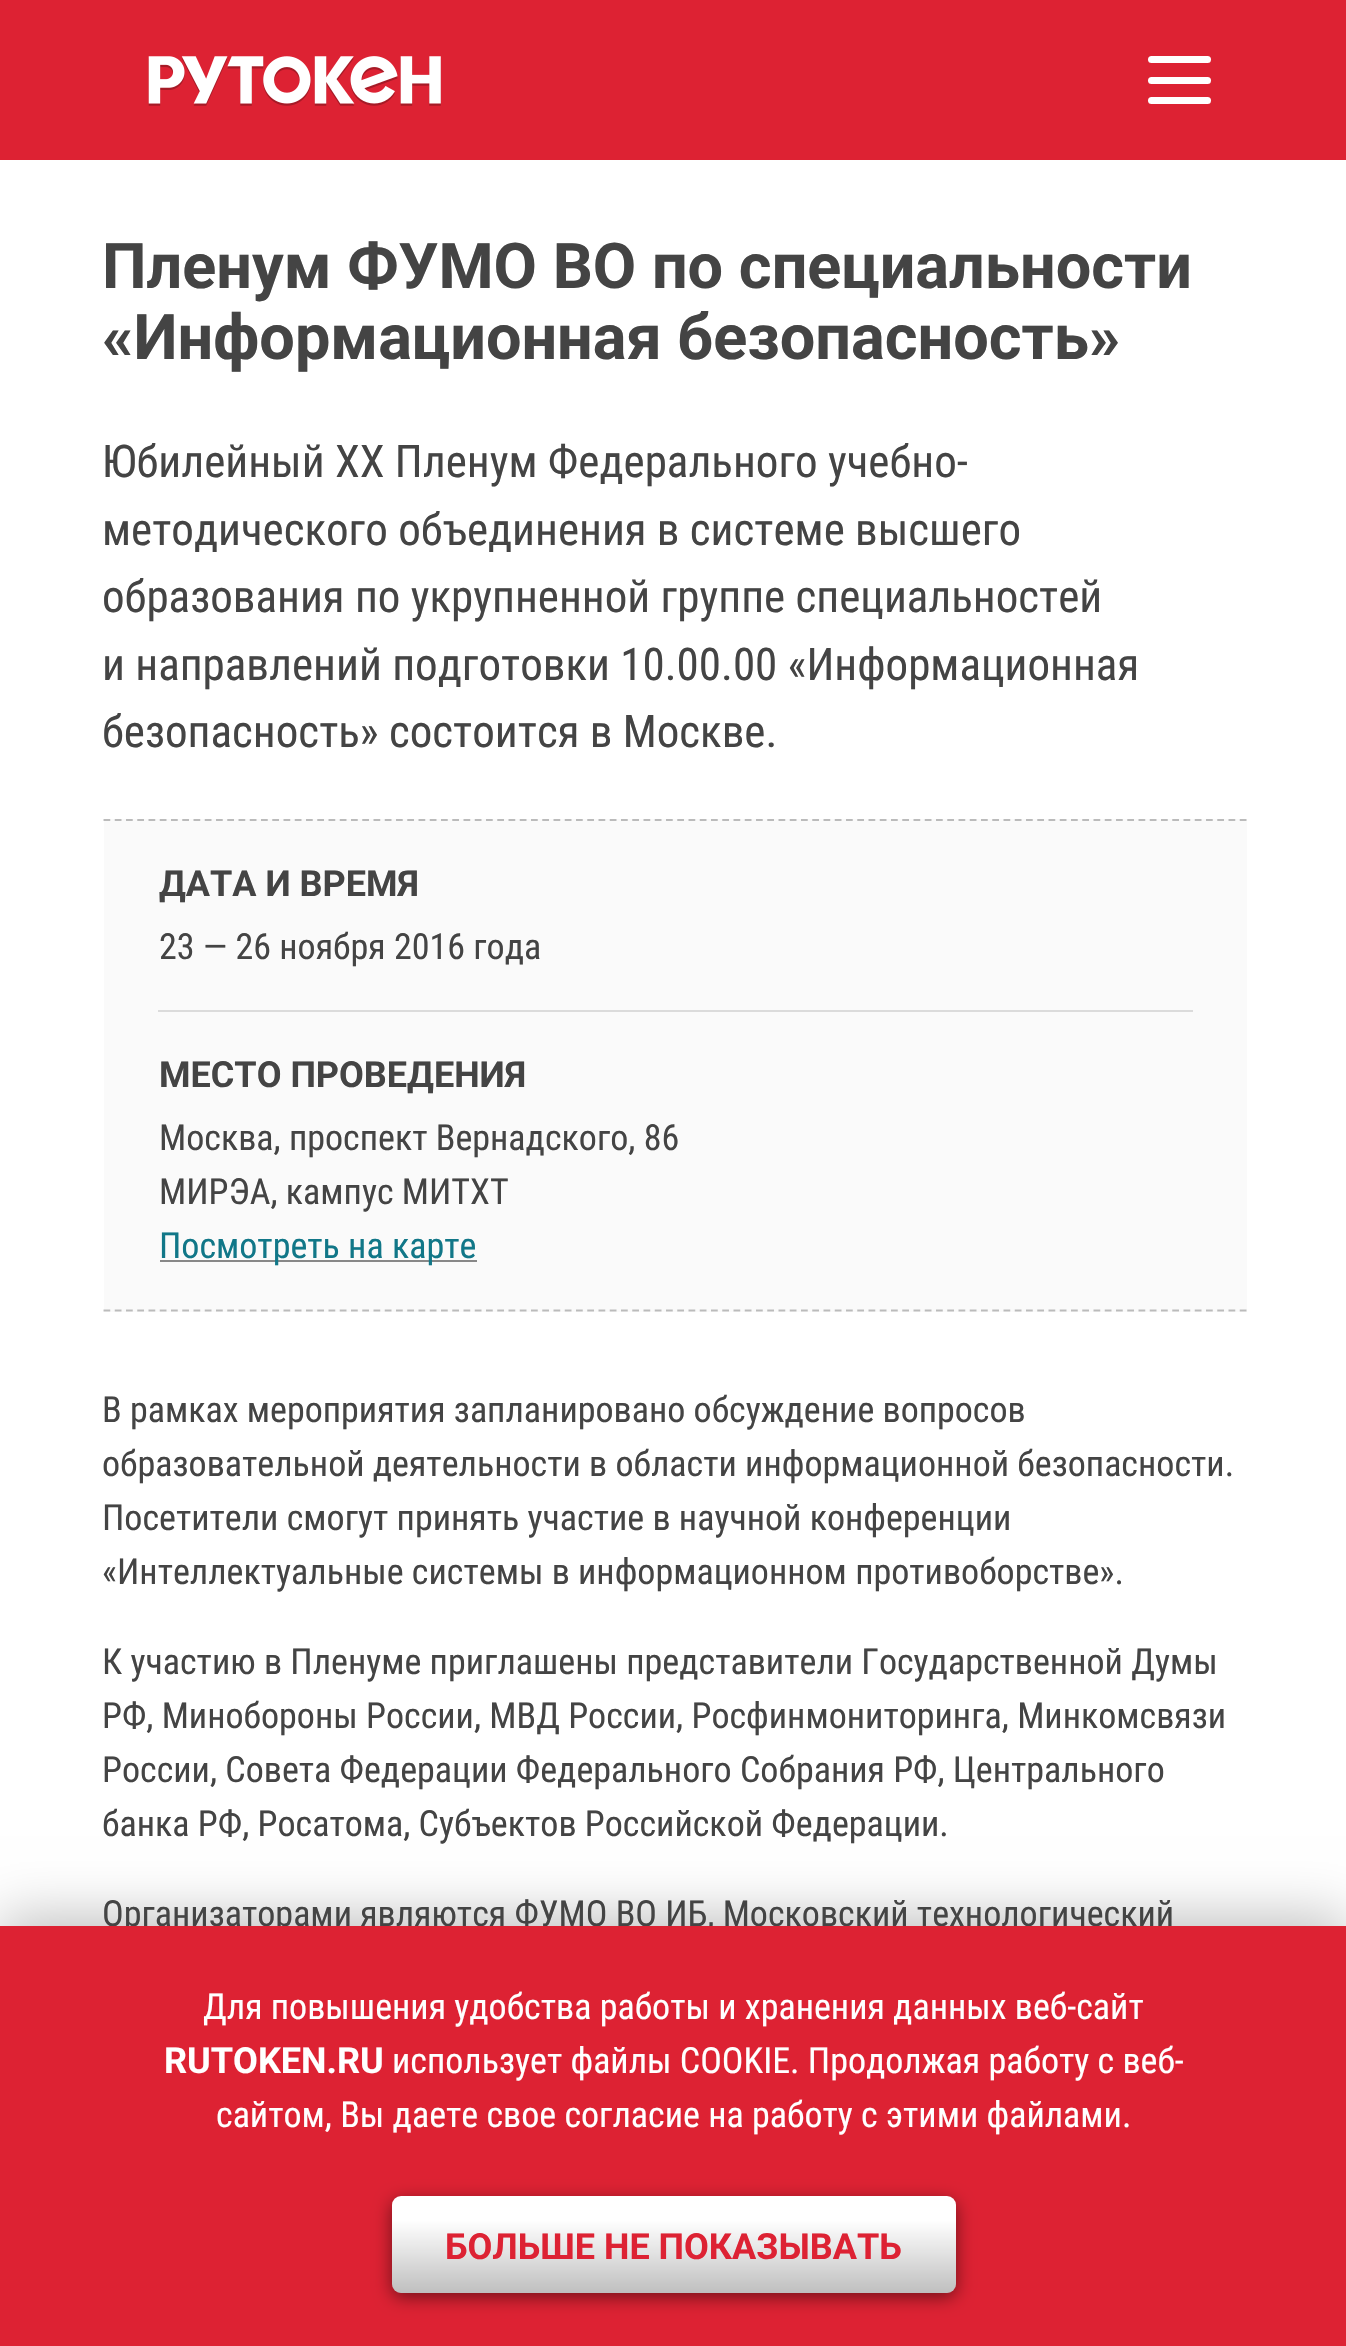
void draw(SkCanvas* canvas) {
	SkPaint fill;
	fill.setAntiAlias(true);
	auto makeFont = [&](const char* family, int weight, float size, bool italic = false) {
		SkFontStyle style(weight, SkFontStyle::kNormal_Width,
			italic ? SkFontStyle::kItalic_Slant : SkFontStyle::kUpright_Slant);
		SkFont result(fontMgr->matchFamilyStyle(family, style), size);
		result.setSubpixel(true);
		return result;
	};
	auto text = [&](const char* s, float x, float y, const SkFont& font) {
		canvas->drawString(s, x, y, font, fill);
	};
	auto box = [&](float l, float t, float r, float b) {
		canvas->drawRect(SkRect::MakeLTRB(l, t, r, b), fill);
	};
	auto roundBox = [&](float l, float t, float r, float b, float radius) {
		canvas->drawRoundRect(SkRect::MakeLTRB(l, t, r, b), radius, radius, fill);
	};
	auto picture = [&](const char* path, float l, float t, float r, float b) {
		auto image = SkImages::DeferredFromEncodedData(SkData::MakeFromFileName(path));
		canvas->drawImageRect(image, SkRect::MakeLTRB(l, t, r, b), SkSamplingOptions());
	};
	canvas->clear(0xFFFFFFFF);
	fill.setColor(0xFFDD2233);
	box(0, 0, 1346, 160);
	picture("image0.png", 148, 56, 441, 106);
	fill.setColor(0xFFFFFFFF);
	roundBox(1148, 77, 1211, 84, 3.5f);
	roundBox(1148, 56, 1211, 63, 3.5f);
	roundBox(1148, 97, 1211, 104, 3.5f);
	fill.setColor(0xFFFAFAFA);
	box(104, 819, 1247, 1312);
	fill.setStyle(SkPaint::kStroke_Style);
	fill.setStrokeWidth(2.2f);
	fill.setColor(0x40000000);
	fill.setPathEffect(SkDashPathEffect::Make({{6.75f, 4.5f}}, 0));
	canvas->drawPath(SkPathBuilder().moveTo(103.5f, 820).lineTo(1246.5f, 820).detach(), fill);
	fill.setPathEffect(nullptr);
	fill.setPathEffect(SkDashPathEffect::Make({{6.75f, 4.5f}}, 0));
	canvas->drawPath(SkPathBuilder().moveTo(103.5f, 1310.5f).lineTo(1246.5f, 1310.5f).detach(), fill);
	fill.setPathEffect(nullptr);
	fill.setStyle(SkPaint::kFill_Style);
	fill.setColor(0xFFDBDBDB);
	box(158, 1010, 1193, 1012);
	fill.setColor(0xFF888888);
	box(160, 1260, 477, 1262);
	fill.setColor(0x40000000);
	fill.setMaskFilter(SkMaskFilter::MakeBlur(kNormal_SkBlurStyle, 27));
	canvas->drawRect(SkRect::MakeLTRB(0, 1917, 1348, 2338), fill);
	fill.setMaskFilter(nullptr);
	auto font1 = makeFont("Roboto", 700, 63);
	fill.setColor(0xFF444444);
	text("Пленум ФУМО ВО по специальности", 102, 288, font1);
	text("«Информационная безопасность»", 102, 359, font1);
	auto font2 = makeFont("Roboto Condensed", 400, 45);
	text("Юбилейный XX Пленум Федерального учебно-", 102, 477, font2);
	text("методического объединения в системе высшего", 102, 545, font2);
	text("образования по укрупненной группе специальностей", 102, 612, font2);
	text("и направлений подготовки 10.00.00 «Информационная", 102, 680, font2);
	text("безопасность» состоится в Москве.", 102, 747, font2);
	auto font3 = makeFont("Roboto", 700, 36);
	text("ДАТА И ВРЕМЯ", 159, 896, font3);
	auto font4 = makeFont("Roboto Condensed", 400, 36);
	text("23 — 26 ноября 2016 года", 159, 959, font4);
	text("МЕСТО ПРОВЕДЕНИЯ", 159, 1087, font3);
	text("Москва, проспект Вернадского, 86", 159, 1150, font4);
	text("МИРЭА, кампус МИТХТ", 159, 1204, font4);
	fill.setColor(0xFF117788);
	text("Посмотреть на карте", 159, 1258, font4);
	fill.setColor(0xFF444444);
	text("В рамках мероприятия запланировано обсуждение вопросов", 102, 1422, font4);
	text("образовательной деятельности в области информационной безопасности.", 102, 1476, font4);
	text("Посетители смогут принять участие в научной конференции", 102, 1530, font4);
	text("«Интеллектуальные системы в информационном противоборстве».", 102, 1584, font4);
	text("К участию в Пленуме приглашены представители Государственной Думы", 102, 1674, font4);
	text("РФ, Минобороны России, МВД России, Росфинмониторинга, Минкомсвязи", 102, 1728, font4);
	text("России, Совета Федерации Федерального Собрания РФ, Центрального", 102, 1782, font4);
	text("банка РФ, Росатома, Субъектов Российской Федерации.", 102, 1836, font4);
	text("Организаторами являются ФУМО ВО ИБ, Московский технологический", 102, 1926, font4);
	fill.setColor(0xFFDD2233);
	box(0, 1926, 1346, 2346);
	fill.setColor(0xFFFFFFFF);
	text("Для повышения удобства работы и хранения данных веб-сайт", 203, 2019, font4);
	text("RUTOKEN.RU", 164, 2073, font3);
	text("использует файлы COOKIE. Продолжая работу с веб-", 392, 2073, font4);
	text("сайтом, Вы даете свое согласие на работу с этими файлами.", 216, 2127, font4);
	fill.setColor(0x80000000);
	fill.setMaskFilter(SkMaskFilter::MakeBlur(kNormal_SkBlurStyle, 9));
	canvas->drawRoundRect(SkRect::MakeLTRB(392, 2201, 956, 2297), 9, 9, fill);
	fill.setMaskFilter(nullptr);
	fill.setColor(0xFFFFFFFF);
	roundBox(392, 2196, 956, 2293, 9);
	{
		const SkColor colors[] = {0x00000000, 0x40000000};
		const float stops[] = {0.25f, 1};
		const SkPoint ends[] = {{674, 2196}, {674, 2293}};
		fill.setShader(SkGradientShader::MakeLinear(ends, colors, stops, 2, SkTileMode::kClamp));
		fill.setAlpha(255);
	}
	roundBox(392, 2196, 956, 2293, 9);
	fill.setShader(nullptr);
	fill.setColor(0xFFDD2233);
	text("БОЛЬШЕ НЕ ПОКАЗЫВАТЬ", 445, 2259, font3);
}
